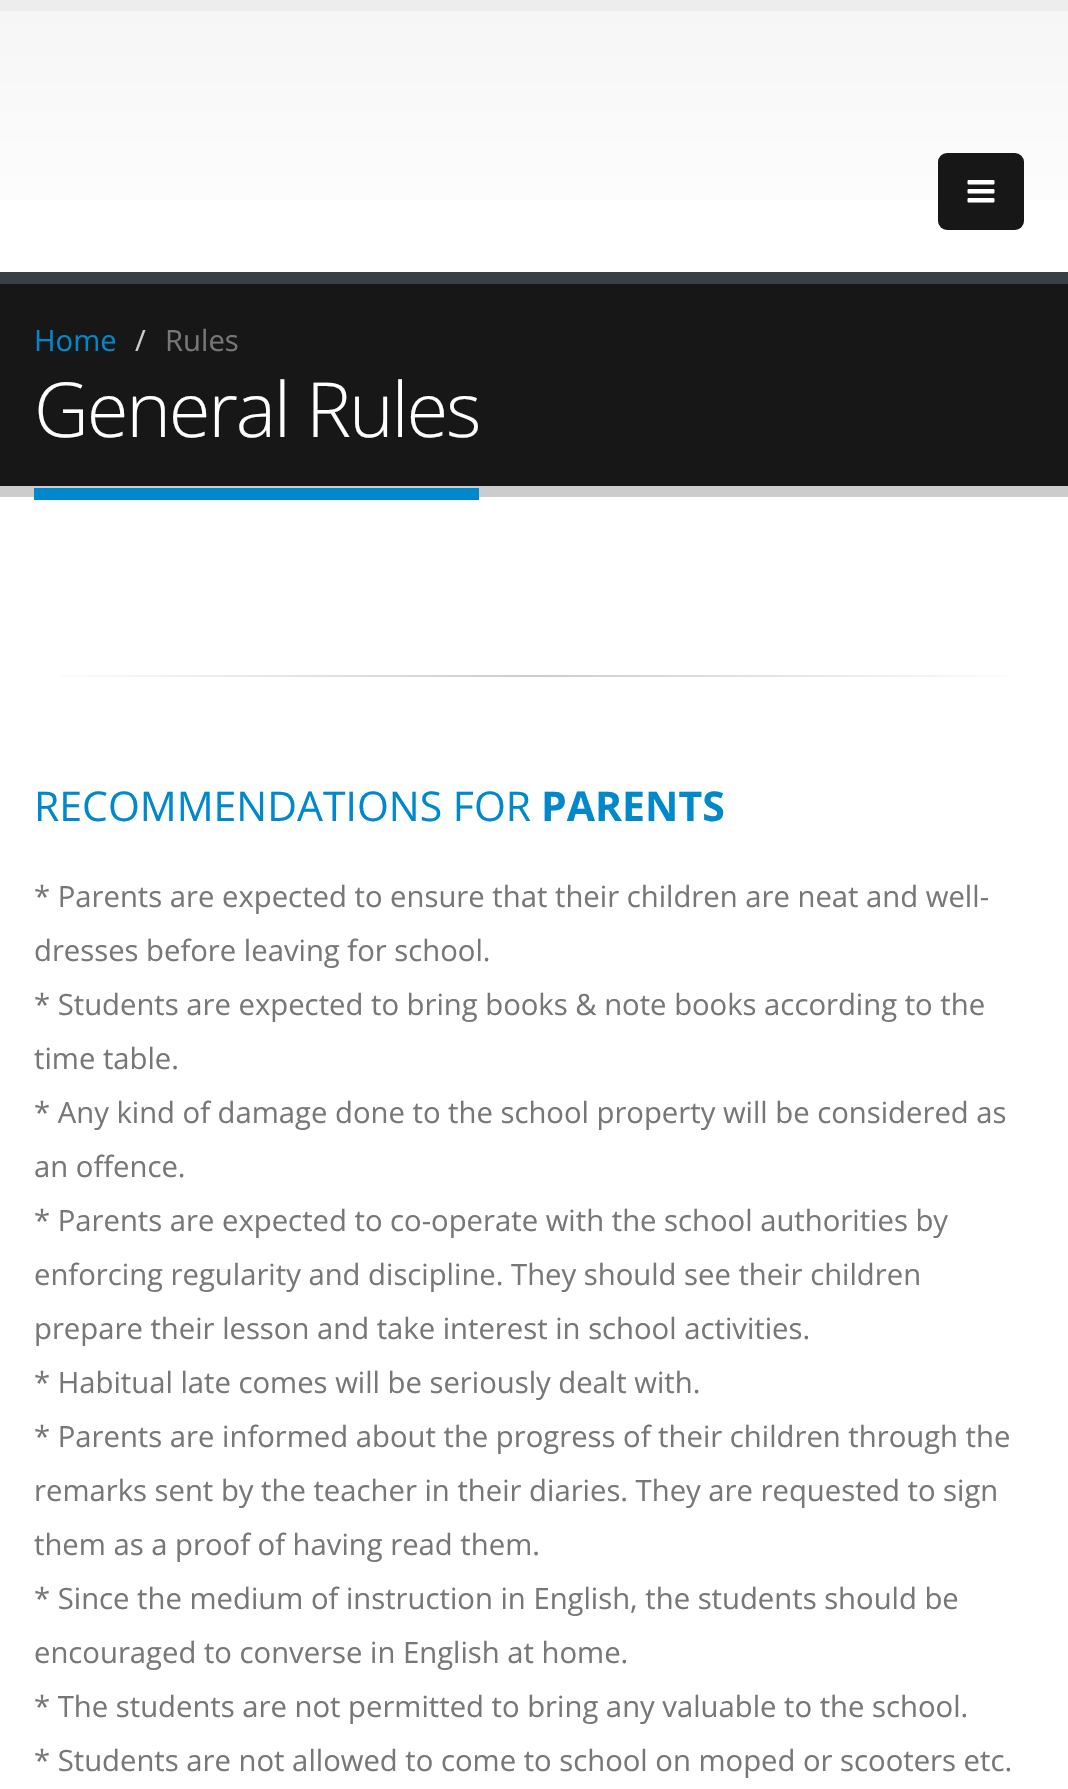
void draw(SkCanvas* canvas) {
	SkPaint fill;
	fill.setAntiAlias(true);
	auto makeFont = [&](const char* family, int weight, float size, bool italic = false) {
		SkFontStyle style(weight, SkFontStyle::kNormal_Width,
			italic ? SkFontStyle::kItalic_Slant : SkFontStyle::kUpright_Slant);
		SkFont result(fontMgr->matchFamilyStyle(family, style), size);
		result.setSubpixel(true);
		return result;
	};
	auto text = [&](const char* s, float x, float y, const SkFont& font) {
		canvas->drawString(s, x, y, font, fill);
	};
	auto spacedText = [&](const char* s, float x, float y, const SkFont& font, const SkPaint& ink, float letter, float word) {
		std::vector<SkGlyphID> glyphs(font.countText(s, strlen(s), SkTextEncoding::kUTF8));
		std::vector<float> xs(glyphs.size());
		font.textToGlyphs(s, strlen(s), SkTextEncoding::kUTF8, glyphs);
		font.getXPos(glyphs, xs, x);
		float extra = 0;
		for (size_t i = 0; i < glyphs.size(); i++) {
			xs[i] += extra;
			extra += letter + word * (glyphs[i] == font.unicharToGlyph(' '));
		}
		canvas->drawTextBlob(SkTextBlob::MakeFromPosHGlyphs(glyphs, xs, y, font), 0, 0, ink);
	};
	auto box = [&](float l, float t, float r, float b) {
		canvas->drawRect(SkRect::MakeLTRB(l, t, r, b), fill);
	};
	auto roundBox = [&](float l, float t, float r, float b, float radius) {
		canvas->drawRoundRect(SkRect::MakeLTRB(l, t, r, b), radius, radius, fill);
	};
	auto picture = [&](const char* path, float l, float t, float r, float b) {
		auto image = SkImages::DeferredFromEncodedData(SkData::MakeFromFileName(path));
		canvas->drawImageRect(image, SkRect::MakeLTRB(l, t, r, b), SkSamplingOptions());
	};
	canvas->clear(0xFFFFFFFF);
	{
		const SkColor colors[] = {0xFFF6F6F6, 0xFFFFFFFF};
		const float stops[] = {0, 1};
		const SkPoint ends[] = {{534, 11}, {534, 272}};
		fill.setShader(SkGradientShader::MakeLinear(ends, colors, stops, 2, SkTileMode::kClamp));
		fill.setAlpha(255);
	}
	box(0, 11, 1068, 200);
	fill.setShader(nullptr);
	fill.setColor(0xFFEDEDED);
	box(0, 0, 1068, 11);
	fill.setColor(0xFF171717);
	roundBox(938, 153, 1024, 230, 9);
	picture("image0.png", 967, 180, 995, 203);
	box(0, 284, 1068, 486);
	fill.setColor(0xFF384045);
	box(0, 272, 1068, 284);
	fill.setColor(0xFFCCCCCC);
	box(0, 486, 1068, 497);
	fill.setColor(0xFF0088CC);
	box(34, 488, 479, 500);
	{
		const SkColor colors[] = {0xFFFFFFFF, 0xFFCCCCCC, 0xFFFFFFFF};
		const float stops[] = {0, 0.5f, 1};
		const SkPoint ends[] = {{34, 676}, {1035, 676}};
		fill.setShader(SkGradientShader::MakeLinear(ends, colors, stops, 3, SkTileMode::kClamp));
		fill.setAlpha(255);
	}
	box(59, 675, 1010, 677);
	auto font1 = makeFont("Open Sans", 400, 29.25f);
	fill.setShader(nullptr);
	fill.setColor(0xFF0088CC);
	text("Home", 34, 351, font1);
	fill.setColor(0xFFCCCCCC);
	text("/", 135, 351, font1);
	fill.setColor(0xFF777777);
	text("Rules", 165, 351, font1);
	auto font2 = makeFont("Open Sans", 300, 76);
	fill.setColor(0xFFFFFFFF);
	spacedText("General Rules", 34, 437, font2, fill, -2.25f, 0);
	auto font3 = makeFont("Open Sans", 400, 41);
	fill.setColor(0xFF0088CC);
	text("RECOMMENDATIONS FOR", 34, 821, font3);
	auto font4 = makeFont("Open Sans", 700, 41);
	text("PARENTS", 541, 821, font4);
	fill.setColor(0xFF777777);
	text("* Parents are expected to ensure that their children are neat and well-", 34, 907, font1);
	text("dresses before leaving for school.", 34, 961, font1);
	text("* Students are expected to bring books & note books according to the", 34, 1015, font1);
	text("time table.", 34, 1069, font1);
	text("* Any kind of damage done to the school property will be considered as", 34, 1123, font1);
	text("an offence.", 34, 1177, font1);
	text("* Parents are expected to co-operate with the school authorities by", 34, 1231, font1);
	text("enforcing regularity and discipline. They should see their children", 34, 1285, font1);
	text("prepare their lesson and take interest in school activities.", 34, 1339, font1);
	text("* Habitual late comes will be seriously dealt with.", 34, 1393, font1);
	text("* Parents are informed about the progress of their children through the", 34, 1447, font1);
	text("remarks sent by the teacher in their diaries. They are requested to sign", 34, 1501, font1);
	text("them as a proof of having read them.", 34, 1555, font1);
	text("* Since the medium of instruction in English, the students should be", 34, 1609, font1);
	text("encouraged to converse in English at home.", 34, 1663, font1);
	text("* The students are not permitted to bring any valuable to the school.", 34, 1717, font1);
	text("* Students are not allowed to come to school on moped or scooters etc.", 34, 1771, font1);
}
